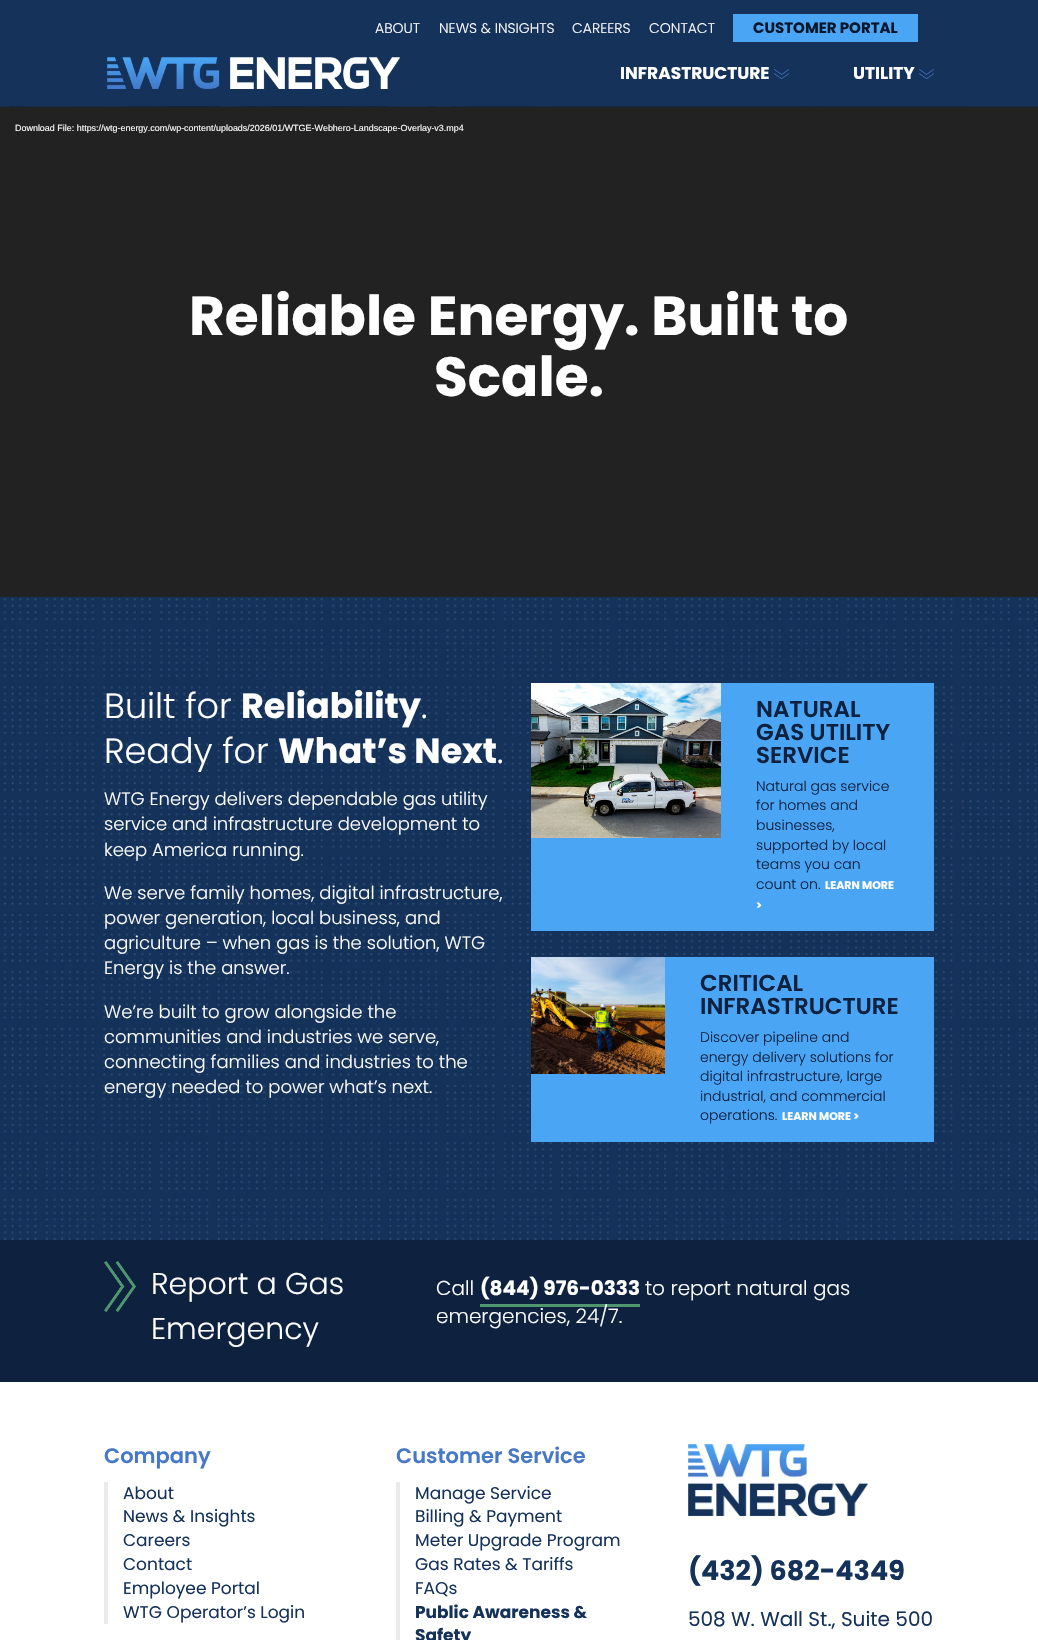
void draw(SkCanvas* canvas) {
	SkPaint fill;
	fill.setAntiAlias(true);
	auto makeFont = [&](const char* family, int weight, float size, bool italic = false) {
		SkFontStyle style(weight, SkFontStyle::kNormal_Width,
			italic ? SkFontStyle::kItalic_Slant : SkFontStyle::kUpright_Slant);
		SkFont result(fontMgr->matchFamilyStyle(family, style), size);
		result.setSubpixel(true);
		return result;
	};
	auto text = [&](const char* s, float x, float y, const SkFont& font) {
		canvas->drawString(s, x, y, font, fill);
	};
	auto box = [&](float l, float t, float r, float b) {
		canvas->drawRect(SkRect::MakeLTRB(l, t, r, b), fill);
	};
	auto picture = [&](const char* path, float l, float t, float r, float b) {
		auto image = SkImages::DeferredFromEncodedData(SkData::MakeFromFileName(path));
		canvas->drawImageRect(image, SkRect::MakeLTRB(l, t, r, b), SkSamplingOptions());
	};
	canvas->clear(0xFFFFFFFF);
	fill.setColor(0xFF14325A);
	box(0, 0, 1038, 106);
	fill.setColor(0xFF4BA5F5);
	box(733, 14, 918, 42);
	picture("image0.png", 107, 57, 400, 89);
	picture("image1.png", 774, 69, 789, 79);
	picture("image1.png", 919, 69, 934, 79);
	picture("image2.png", 0, 106, 1038, 107);
	fill.setColor(0xFF222222);
	box(0, 107, 1038, 597);
	picture("image3.png", 0, 597, 1038, 1240);
	fill.setColor(0xFF4BA5F5);
	box(531, 683, 934, 931);
	picture("image4.png", 531, 683, 721, 838);
	box(531, 957, 934, 1142);
	picture("image5.png", 531, 957, 665, 1074);
	fill.setColor(0xFF0E213F);
	box(0, 1240, 1038, 1382);
	picture("image6.png", 104, 1261, 136, 1312);
	fill.setColor(0xFF50966E);
	box(480, 1304, 640, 1307);
	fill.setColor(0xFFEAEAEA);
	box(104, 1482, 108, 1624);
	box(396, 1482, 400, 1640);
	picture("image7.png", 688, 1444, 868, 1516);
	auto font1 = makeFont("Poppins", 300, 14);
	fill.setColor(0xFFFFFFFF);
	text("ABOUT", 375, 33, font1);
	text("NEWS & INSIGHTS", 439, 33, font1);
	text("CAREERS", 572, 33, font1);
	text("CONTACT", 649, 33, font1);
	auto font2 = makeFont("Poppins", 700, 15);
	fill.setColor(0xFF06172B);
	text("CUSTOMER PORTAL", 753, 33, font2);
	auto font3 = makeFont("Poppins", 700, 17);
	fill.setColor(0xFFFFFFFF);
	text("INFRASTRUCTURE", 620, 79, font3);
	text("UTILITY", 853, 79, font3);
	auto font4 = makeFont("Liberation Sans", 400, 8.95f);
	text("Download File: https://wtg-energy.com/wp-content/uploads/2026/01/WTGE-Webhero-Landscape-Overlay-v3.mp4", 15, 131, font4);
	auto font5 = makeFont("Poppins", 700, 55);
	text("Reliable Energy. Built to", 189, 335, font5);
	text("Scale.", 434, 396, font5);
	auto font6 = makeFont("Poppins", 300, 35);
	text("Built for", 104, 718, font6);
	auto font7 = makeFont("Poppins", 700, 35);
	text("Reliability", 241, 718, font7);
	text(".", 421, 718, font6);
	text("Ready for", 104, 763, font6);
	text("What’s Next", 278, 763, font7);
	text(".", 497, 763, font6);
	auto font8 = makeFont("Poppins", 300, 18);
	text("WTG Energy delivers dependable gas utility", 104, 805, font8);
	text("service and infrastructure development to", 104, 830, font8);
	text("keep America running.", 104, 856, font8);
	text("We serve family homes, digital infrastructure,", 104, 899, font8);
	text("power generation, local business, and", 104, 924, font8);
	text("agriculture – when gas is the solution, WTG", 104, 949, font8);
	text("Energy is the answer.", 104, 974, font8);
	text("We’re built to grow alongside the", 104, 1018, font8);
	text("communities and industries we serve,", 104, 1043, font8);
	text("connecting families and industries to the", 104, 1068, font8);
	text("energy needed to power what’s next.", 104, 1093, font8);
	auto font9 = makeFont("Poppins", 600, 23);
	fill.setColor(0xFF0E213F);
	text("NATURAL", 756, 717, font9);
	text("GAS UTILITY", 756, 740, font9);
	text("SERVICE", 756, 763, font9);
	text("Natural gas service", 756, 791, font1);
	text("for homes and", 756, 810, font1);
	text("businesses,", 756, 830, font1);
	text("supported by local", 756, 850, font1);
	text("teams you can", 756, 869, font1);
	text("count on.", 756, 889, font1);
	auto font10 = makeFont("Poppins", 700, 11);
	fill.setColor(0xFFFFFFFF);
	text("LEARN MORE", 825, 889, font10);
	text(">", 756, 909, font10);
	fill.setColor(0xFF0E213F);
	text("CRITICAL", 700, 991, font9);
	text("INFRASTRUCTURE", 700, 1014, font9);
	text("Discover pipeline and", 700, 1042, font1);
	text("energy delivery solutions for", 700, 1062, font1);
	text("digital infrastructure, large", 700, 1081, font1);
	text("industrial, and commercial", 700, 1101, font1);
	text("operations.", 700, 1120, font1);
	fill.setColor(0xFFFFFFFF);
	text("LEARN MORE >", 782, 1120, font10);
	auto font11 = makeFont("Poppins", 300, 30);
	text("Report a Gas", 151, 1294, font11);
	text("Emergency", 151, 1339, font11);
	auto font12 = makeFont("Poppins", 300, 20);
	text("Call", 436, 1295, font12);
	auto font13 = makeFont("Poppins", 700, 20);
	text("(844) 976-0333", 480, 1295, font13);
	text("to report natural gas", 645, 1295, font12);
	text("emergencies, 24/7.", 436, 1323, font12);
	auto font14 = makeFont("Poppins", 600, 21);
	fill.setColor(0xFF4678C8);
	text("Company", 104, 1463, font14);
	auto font15 = makeFont("Poppins", 400, 17);
	fill.setColor(0xFF14325A);
	text("About", 123, 1499, font15);
	text("News & Insights", 123, 1522, font15);
	text("Careers", 123, 1546, font15);
	text("Contact", 123, 1570, font15);
	text("Employee Portal", 123, 1594, font15);
	text("WTG Operator’s Login", 123, 1618, font15);
	fill.setColor(0xFF4678C8);
	text("Customer Service", 396, 1463, font14);
	fill.setColor(0xFF14325A);
	text("Manage Service", 415, 1499, font15);
	text("Billing & Payment", 415, 1522, font15);
	text("Meter Upgrade Program", 415, 1546, font15);
	text("Gas Rates & Tariffs", 415, 1570, font15);
	text("FAQs", 415, 1594, font15);
	text("Public Awareness &", 415, 1618, font3);
	text("Safety", 415, 1641, font3);
	auto font16 = makeFont("Poppins", 700, 27);
	text("(432) 682-4349", 688, 1580, font16);
	auto font17 = makeFont("Poppins", 400, 20);
	text("508 W. Wall St., Suite 500", 688, 1626, font17);
}
